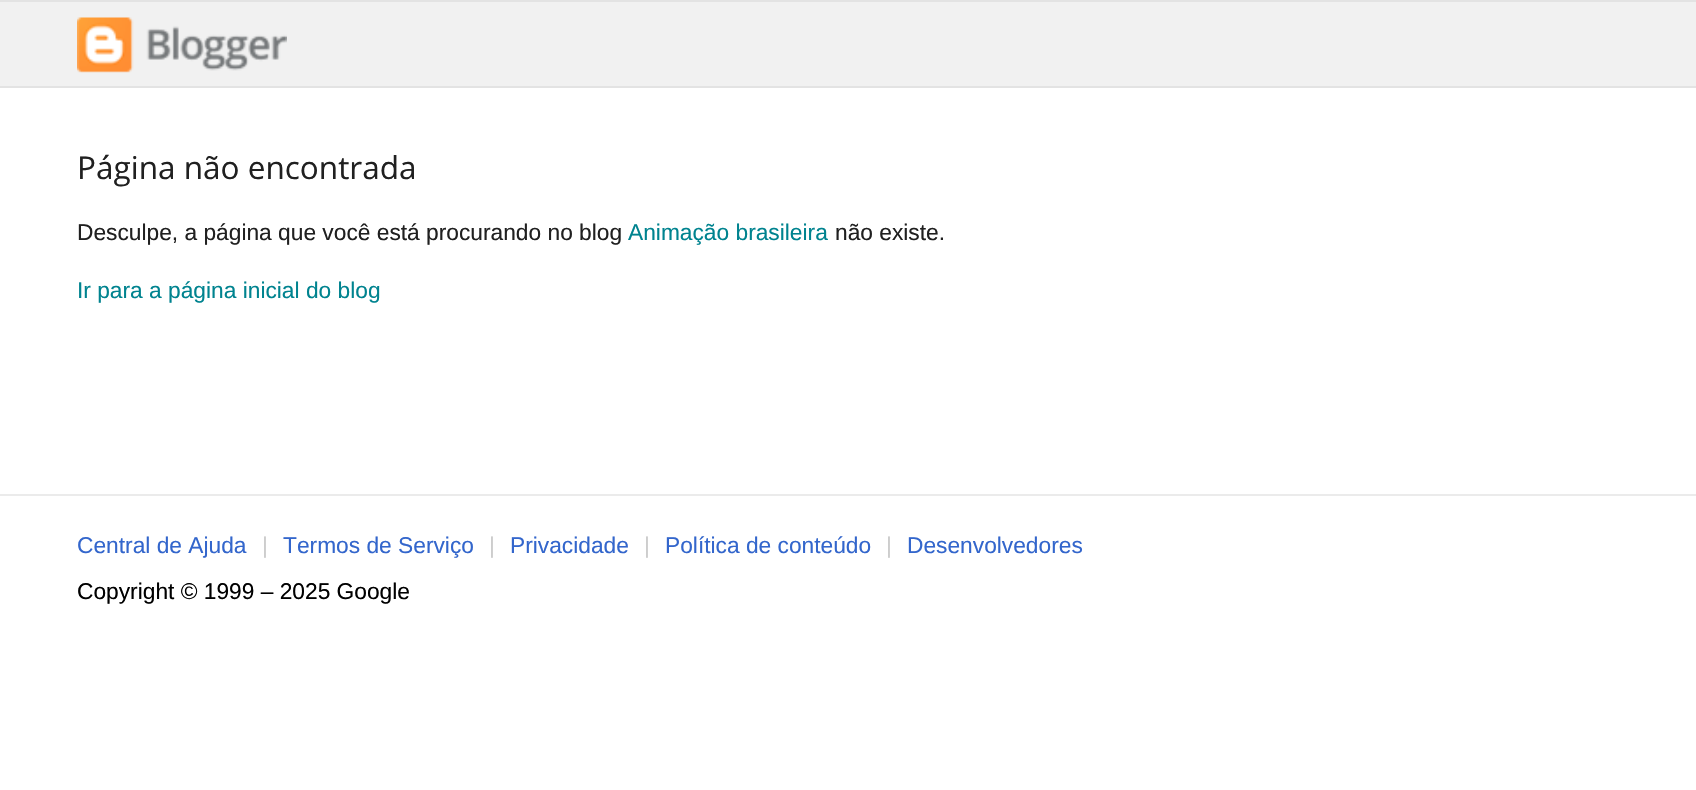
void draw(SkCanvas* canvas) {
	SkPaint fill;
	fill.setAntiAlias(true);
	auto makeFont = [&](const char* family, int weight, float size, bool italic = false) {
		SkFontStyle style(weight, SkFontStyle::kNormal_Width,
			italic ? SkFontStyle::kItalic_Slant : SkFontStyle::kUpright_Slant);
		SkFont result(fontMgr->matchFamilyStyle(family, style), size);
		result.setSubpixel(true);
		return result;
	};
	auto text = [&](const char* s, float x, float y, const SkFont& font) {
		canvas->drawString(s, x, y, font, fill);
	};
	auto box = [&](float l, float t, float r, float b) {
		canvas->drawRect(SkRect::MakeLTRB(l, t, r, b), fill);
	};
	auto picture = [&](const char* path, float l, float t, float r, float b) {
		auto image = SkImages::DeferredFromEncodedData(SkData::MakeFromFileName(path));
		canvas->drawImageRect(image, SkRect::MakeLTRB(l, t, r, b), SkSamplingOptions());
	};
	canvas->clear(0xFFFFFFFF);
	fill.setColor(0xFFF1F1F1);
	box(0, 2, 1696, 86);
	fill.setColor(0xFFE3E3E3);
	box(0, 0, 1696, 2);
	box(0, 86, 1696, 88);
	picture("image0.png", 77, 17, 287, 73);
	fill.setColor(0xFFEBEBEB);
	box(0, 494, 1696, 496);
	auto font1 = makeFont("Open Sans", 400, 31.5f);
	fill.setColor(0xFF202020);
	text("Página não encontrada", 77, 179, font1);
	auto font2 = makeFont("Liberation Sans", 400, 22.75f);
	text("Desculpe, a página que você está procurando no blog", 77, 240, font2);
	fill.setColor(0xFF00838F);
	text("Animação brasileira", 628, 240, font2);
	fill.setColor(0xFF202020);
	text("não existe.", 835, 240, font2);
	fill.setColor(0xFF00838F);
	text("Ir para a página inicial do blog", 77, 298, font2);
	fill.setColor(0xFF3366CC);
	text("Central de Ajuda", 77, 553, font2);
	fill.setColor(0xFFCCCCCC);
	text("|", 262, 553, font2);
	fill.setColor(0xFF3366CC);
	text("Termos de Serviço", 283, 553, font2);
	fill.setColor(0xFFCCCCCC);
	text("|", 489, 553, font2);
	fill.setColor(0xFF3366CC);
	text("Privacidade", 510, 553, font2);
	fill.setColor(0xFFCCCCCC);
	text("|", 644, 553, font2);
	fill.setColor(0xFF3366CC);
	text("Política de conteúdo", 665, 553, font2);
	fill.setColor(0xFFCCCCCC);
	text("|", 886, 553, font2);
	fill.setColor(0xFF3366CC);
	text("Desenvolvedores", 907, 553, font2);
	fill.setColor(0xFF000000);
	text("Copyright © 1999 – 2025 Google", 77, 599, font2);
}
